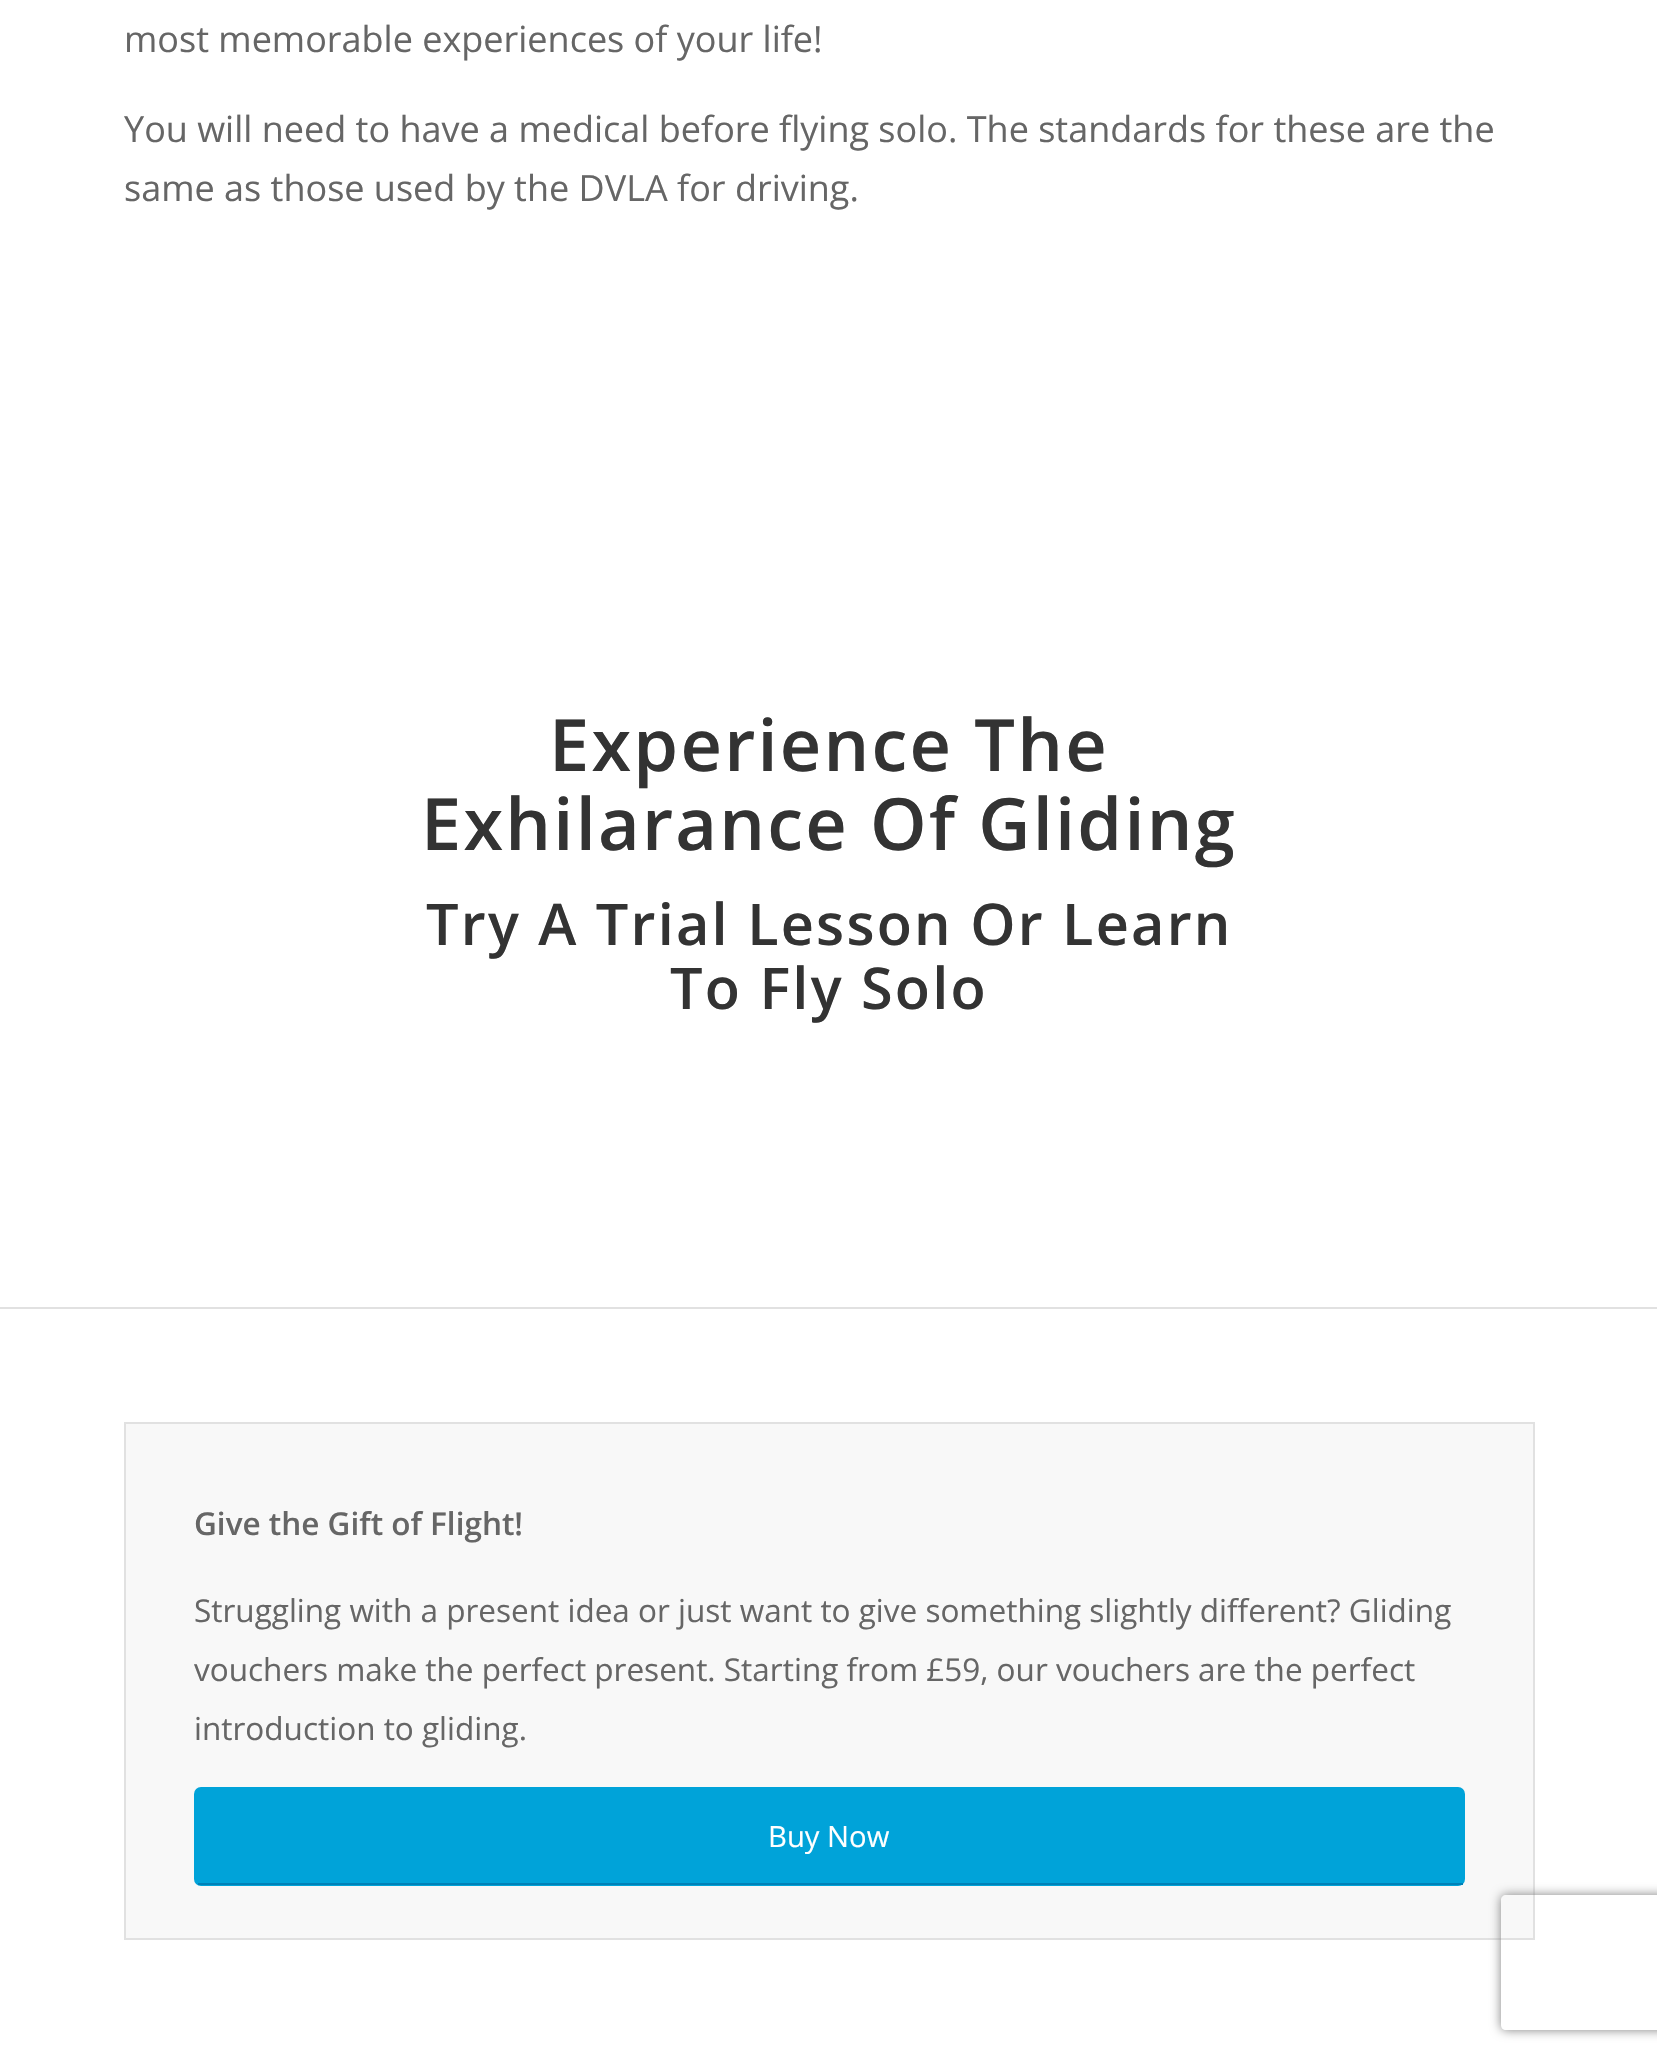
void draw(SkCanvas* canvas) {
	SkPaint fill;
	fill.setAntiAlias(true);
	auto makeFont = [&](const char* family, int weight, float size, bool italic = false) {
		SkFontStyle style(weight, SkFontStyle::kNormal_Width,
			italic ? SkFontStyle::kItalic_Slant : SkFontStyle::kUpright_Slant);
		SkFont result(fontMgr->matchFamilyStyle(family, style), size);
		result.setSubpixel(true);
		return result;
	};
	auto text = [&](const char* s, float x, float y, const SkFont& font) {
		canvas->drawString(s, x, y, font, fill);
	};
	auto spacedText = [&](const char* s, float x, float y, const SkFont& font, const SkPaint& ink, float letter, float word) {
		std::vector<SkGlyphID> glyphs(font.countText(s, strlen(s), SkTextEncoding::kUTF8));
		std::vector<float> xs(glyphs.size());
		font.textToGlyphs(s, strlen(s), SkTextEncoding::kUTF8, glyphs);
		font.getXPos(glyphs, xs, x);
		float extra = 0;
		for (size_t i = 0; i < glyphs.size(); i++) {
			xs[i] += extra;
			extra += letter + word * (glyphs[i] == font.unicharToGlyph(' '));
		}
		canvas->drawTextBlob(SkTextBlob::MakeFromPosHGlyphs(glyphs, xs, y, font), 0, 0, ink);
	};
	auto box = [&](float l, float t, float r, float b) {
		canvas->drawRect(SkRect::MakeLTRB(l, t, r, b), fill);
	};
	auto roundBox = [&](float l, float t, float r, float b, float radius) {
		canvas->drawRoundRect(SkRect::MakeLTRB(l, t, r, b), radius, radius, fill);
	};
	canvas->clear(0xFFFFFFFF);
	fill.setColor(0xFFE1E1E1);
	box(0, 1307, 1657, 1309);
	fill.setColor(0xFFF8F8F8);
	canvas->drawRect(SkRect::MakeLTRB(125, 1423, 1534, 1939), fill);
	fill.setStyle(SkPaint::kStroke_Style);
	fill.setStrokeWidth(2);
	fill.setColor(0xFFE1E1E1);
	canvas->drawRect(SkRect::MakeLTRB(125, 1423, 1534, 1939), fill);
	fill.setStyle(SkPaint::kFill_Style);
	fill.setColor(0xFF00A3D9);
	roundBox(194, 1787, 1465, 1886, 7);
	fill.setColor(0xFF0081B7);
	box(198, 1883, 1463, 1885);
	canvas->save();
	canvas->clipPath(SkPathBuilder(SkPathFillType::kEvenOdd).moveTo(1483, 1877).lineTo(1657, 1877).lineTo(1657, 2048).lineTo(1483, 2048).close().moveTo(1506, 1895).lineTo(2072, 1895).cubicTo(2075, 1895, 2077, 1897, 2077, 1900).lineTo(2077, 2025).cubicTo(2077, 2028, 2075, 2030, 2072, 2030).lineTo(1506, 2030).cubicTo(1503, 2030, 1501, 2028, 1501, 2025).lineTo(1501, 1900).cubicTo(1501, 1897, 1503, 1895, 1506, 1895).close().detach(), true);
	fill.setColor(0xFF808080);
	fill.setMaskFilter(SkMaskFilter::MakeBlur(kNormal_SkBlurStyle, 5.5f));
	canvas->drawRoundRect(SkRect::MakeLTRB(1501, 1895, 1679, 2030), 5, 5, fill);
	fill.setMaskFilter(nullptr);
	canvas->restore();
	auto font1 = makeFont("Open Sans", 400, 36);
	fill.setColor(0xFF666666);
	text("most memorable experiences of your life!", 124, 52, font1);
	text("You will need to have a medical before flying solo. The standards for these are the", 124, 142, font1);
	text("same as those used by the DVLA for driving.", 124, 201, font1);
	auto font2 = makeFont("Open Sans", 600, 72);
	fill.setColor(0xFF333333);
	spacedText("Experience The", 549, 771, font2, fill, 2.25f, 0);
	spacedText("Exhilarance Of Gliding", 421, 850, font2, fill, 2.25f, 0);
	auto font3 = makeFont("Open Sans", 600, 57.6f);
	spacedText("Try A Trial Lesson Or Learn", 426, 945, font3, fill, 2.25f, 0);
	spacedText("To Fly Solo", 670, 1009, font3, fill, 2.25f, 0);
	auto font4 = makeFont("Open Sans", 600, 31.5f);
	fill.setColor(0xFF666666);
	text("Give the Gift of Flight!", 194, 1535, font4);
	auto font5 = makeFont("Open Sans", 400, 31.5f);
	text("Struggling with a present idea or just want to give something slightly different? Gliding", 194, 1622, font5);
	text("vouchers make the perfect present. Starting from £59, our vouchers are the perfect", 194, 1681, font5);
	text("introduction to gliding.", 194, 1740, font5);
	auto font6 = makeFont("Open Sans", 400, 29.25f);
	fill.setColor(0xFFFFFFFF);
	text("Buy Now", 768, 1847, font6);
}
